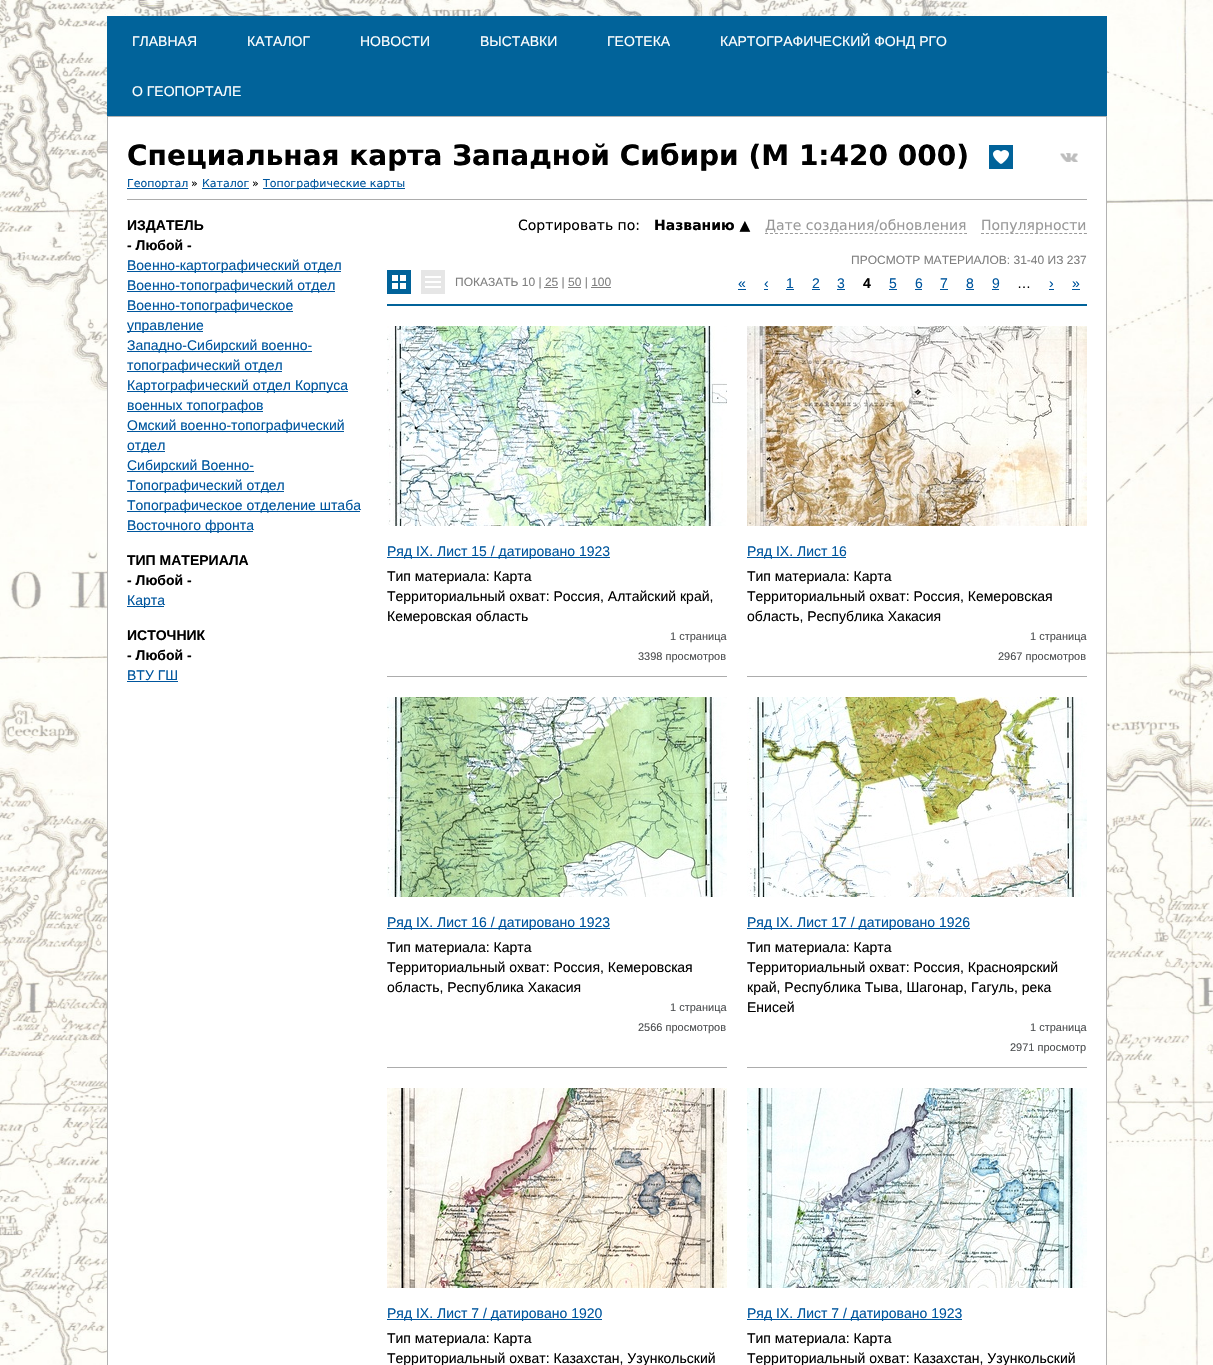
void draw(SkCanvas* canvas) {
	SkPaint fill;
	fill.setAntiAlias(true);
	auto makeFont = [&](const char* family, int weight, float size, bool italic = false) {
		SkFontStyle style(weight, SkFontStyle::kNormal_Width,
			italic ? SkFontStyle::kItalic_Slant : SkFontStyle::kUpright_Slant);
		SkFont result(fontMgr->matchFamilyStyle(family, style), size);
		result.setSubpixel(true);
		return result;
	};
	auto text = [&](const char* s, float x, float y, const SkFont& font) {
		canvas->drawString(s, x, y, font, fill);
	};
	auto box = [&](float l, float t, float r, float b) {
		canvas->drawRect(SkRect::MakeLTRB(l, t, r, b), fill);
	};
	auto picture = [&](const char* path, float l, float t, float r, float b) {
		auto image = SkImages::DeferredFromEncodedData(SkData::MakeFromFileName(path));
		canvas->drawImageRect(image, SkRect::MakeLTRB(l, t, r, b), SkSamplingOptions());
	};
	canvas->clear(0xFFFFFFFF);
	picture("image0.png", 0, 0, 1213, 1365);
	fill.setColor(0xFF01639A);
	box(107, 16, 1107, 116);
	fill.setColor(0xFFFFFFFF);
	canvas->drawRect(SkRect::MakeLTRB(107.5f, 116.5f, 1106.5f, 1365.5f), fill);
	fill.setStyle(SkPaint::kStroke_Style);
	fill.setStrokeWidth(1);
	fill.setColor(0xFFB2B2B2);
	canvas->drawRect(SkRect::MakeLTRB(107.5f, 116.5f, 1106.5f, 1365.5f), fill);
	fill.setStyle(SkPaint::kFill_Style);
	fill.setColor(0xFF01639A);
	box(989, 145, 1013, 169);
	picture("image1.png", 993, 150, 1009, 164);
	picture("image2.png", 1060, 153, 1078, 162);
	fill.setColor(0xFF00569E);
	box(127, 188, 188, 189);
	box(202, 188, 249, 189);
	box(263, 188, 405, 189);
	fill.setColor(0xFFACACAC);
	box(127, 199, 1087, 200);
	fill.setColor(0xFF00569E);
	box(127, 271, 341, 272);
	box(127, 291, 335, 292);
	box(127, 311, 293, 312);
	box(127, 331, 203, 332);
	box(127, 351, 312, 352);
	box(127, 371, 282, 372);
	box(127, 391, 348, 392);
	box(127, 411, 263, 412);
	box(127, 431, 344, 432);
	box(127, 451, 165, 452);
	box(127, 471, 254, 472);
	box(127, 491, 284, 492);
	box(127, 511, 360, 512);
	box(127, 531, 253, 532);
	fill.setStyle(SkPaint::kStroke_Style);
	fill.setColor(0xFF999999);
	fill.setPathEffect(SkDashPathEffect::Make({{3, 1.98f}}, 0));
	canvas->drawPath(SkPathBuilder().moveTo(765, 233.5f).lineTo(967, 233.5f).detach(), fill);
	fill.setPathEffect(nullptr);
	fill.setPathEffect(SkDashPathEffect::Make({{3, 1.9f}}, 0));
	canvas->drawPath(SkPathBuilder().moveTo(981, 233.5f).lineTo(1087, 233.5f).detach(), fill);
	fill.setPathEffect(nullptr);
	fill.setStyle(SkPaint::kFill_Style);
	fill.setColor(0xFF00569E);
	box(127, 606, 164, 607);
	box(127, 681, 178, 682);
	picture("image3.png", 387, 270, 411, 294);
	picture("image4.png", 421, 270, 445, 294);
	fill.setColor(0xFF808080);
	box(544, 287, 558, 288);
	box(568, 287, 581, 288);
	box(591, 287, 611, 288);
	fill.setColor(0xFF00569E);
	box(738, 289, 746, 290);
	box(764, 289, 768, 290);
	box(786, 289, 794, 290);
	box(812, 289, 820, 290);
	box(837, 289, 845, 290);
	box(889, 289, 897, 290);
	box(915, 289, 922, 290);
	box(940, 289, 948, 290);
	box(966, 289, 974, 290);
	box(992, 289, 999, 290);
	box(1049, 289, 1054, 290);
	box(1072, 289, 1080, 290);
	fill.setColor(0xFF01639A);
	box(387, 304, 1087, 306);
	fill.setColor(0xFFACACAC);
	box(387, 676, 727, 677);
	picture("image5.png", 387, 326, 727, 526);
	fill.setColor(0xFF00569E);
	box(387, 557, 610, 558);
	fill.setColor(0xFFACACAC);
	box(747, 676, 1087, 677);
	picture("image6.png", 747, 326, 1087, 526);
	fill.setColor(0xFF00569E);
	box(747, 557, 846, 558);
	fill.setColor(0xFFACACAC);
	box(387, 1067, 727, 1068);
	picture("image7.png", 387, 697, 727, 897);
	fill.setColor(0xFF00569E);
	box(387, 928, 610, 929);
	fill.setColor(0xFFACACAC);
	box(747, 1067, 1087, 1068);
	picture("image8.png", 747, 697, 1087, 897);
	fill.setColor(0xFF00569E);
	box(747, 928, 970, 929);
	picture("image9.png", 387, 1088, 727, 1288);
	box(387, 1319, 602, 1320);
	picture("image10.png", 747, 1088, 1087, 1288);
	box(747, 1319, 962, 1320);
	auto font1 = makeFont("Liberation Sans", 400, 14);
	fill.setColor(0xFFFFFFFF);
	text("ГЛАВНАЯ", 132, 46, font1);
	text("КАТАЛОГ", 247, 46, font1);
	text("НОВОСТИ", 360, 46, font1);
	text("ВЫСТАВКИ", 480, 46, font1);
	text("ГЕОТЕКА", 607, 46, font1);
	text("КАРТОГРАФИЧЕСКИЙ ФОНД РГО", 720, 46, font1);
	text("О ГЕОПОРТАЛЕ", 132, 96, font1);
	auto font2 = makeFont("DejaVu Sans", 700, 28);
	fill.setColor(0xFF000000);
	text("Специальная карта Западной Сибири (М 1:420 000)", 127, 165, font2);
	auto font3 = makeFont("DejaVu Sans", 400, 11);
	fill.setColor(0xFF00569E);
	text("Геопортал", 127, 187, font3);
	fill.setColor(0xFF000000);
	text("»", 191, 187, font3);
	fill.setColor(0xFF00569E);
	text("Каталог", 202, 187, font3);
	fill.setColor(0xFF000000);
	text("»", 252, 187, font3);
	fill.setColor(0xFF00569E);
	text("Топографические карты", 263, 187, font3);
	auto font4 = makeFont("Liberation Sans", 700, 14);
	fill.setColor(0xFF000000);
	text("ИЗДАТЕЛЬ", 127, 230, font4);
	text("- Любой -", 127, 250, font4);
	fill.setColor(0xFF00569E);
	text("Военно-картографический отдел", 127, 270, font1);
	text("Военно-топографический отдел", 127, 290, font1);
	text("Военно-топографическое", 127, 310, font1);
	text("управление", 127, 330, font1);
	text("Западно-Сибирский военно-", 127, 350, font1);
	text("топографический отдел", 127, 370, font1);
	text("Картографический отдел Корпуса", 127, 390, font1);
	text("военных топографов", 127, 410, font1);
	text("Омский военно-топографический", 127, 430, font1);
	text("отдел", 127, 450, font1);
	text("Сибирский Военно-", 127, 470, font1);
	text("Топографический отдел", 127, 490, font1);
	text("Топографическое отделение штаба", 127, 510, font1);
	text("Восточного фронта", 127, 530, font1);
	auto font5 = makeFont("DejaVu Sans", 400, 14);
	fill.setColor(0xFF000000);
	text("Сортировать по:", 518, 230, font5);
	auto font6 = makeFont("DejaVu Sans", 700, 14);
	text("Hазванию ▲", 654, 230, font6);
	fill.setColor(0xFF999999);
	text("Дате создания/обновления", 765, 230, font5);
	text("Популярности", 981, 230, font5);
	fill.setColor(0xFF000000);
	text("ТИП МАТЕРИАЛА", 127, 565, font4);
	text("- Любой -", 127, 585, font4);
	fill.setColor(0xFF00569E);
	text("Карта", 127, 605, font1);
	fill.setColor(0xFF000000);
	text("ИСТОЧНИК", 127, 640, font4);
	text("- Любой -", 127, 660, font4);
	fill.setColor(0xFF00569E);
	text("ВТУ ГШ", 127, 680, font1);
	auto font7 = makeFont("Liberation Sans", 400, 12);
	fill.setColor(0xFF808080);
	text("ПРОСМОТР МАТЕРИАЛОВ: 31-40 ИЗ 237", 851, 264, font7);
	text("ПОКАЗАТЬ 10 | 25 | 50 | 100", 455, 286, font7);
	fill.setColor(0xFF00569E);
	text("«", 738, 288, font1);
	text("‹", 764, 288, font1);
	text("1", 786, 288, font1);
	text("2", 812, 288, font1);
	text("3", 837, 288, font1);
	fill.setColor(0xFF000000);
	text("4", 863, 288, font4);
	fill.setColor(0xFF00569E);
	text("5", 889, 288, font1);
	text("6", 915, 288, font1);
	text("7", 940, 288, font1);
	text("8", 966, 288, font1);
	text("9", 992, 288, font1);
	fill.setColor(0xFF000000);
	text("…", 1017, 288, font1);
	fill.setColor(0xFF00569E);
	text("›", 1049, 288, font1);
	text("»", 1072, 288, font1);
	text("Ряд IX. Лист 15 / датировано 1923", 387, 556, font1);
	fill.setColor(0xFF000000);
	text("Тип материала: Карта", 387, 581, font1);
	text("Территориальный охват: Россия, Алтайский край,", 387, 601, font1);
	text("Кемеровская область", 387, 621, font1);
	auto font8 = makeFont("Liberation Sans", 400, 11);
	fill.setColor(0xFF4D4F51);
	text("1 страница", 670, 640, font8);
	text("3398 просмотров", 638, 660, font8);
	fill.setColor(0xFF00569E);
	text("Ряд IX. Лист 16", 747, 556, font1);
	fill.setColor(0xFF000000);
	text("Тип материала: Карта", 747, 581, font1);
	text("Территориальный охват: Россия, Кемеровская", 747, 601, font1);
	text("область, Республика Хакасия", 747, 621, font1);
	fill.setColor(0xFF4D4F51);
	text("1 страница", 1030, 640, font8);
	text("2967 просмотров", 998, 660, font8);
	fill.setColor(0xFF00569E);
	text("Ряд IX. Лист 16 / датировано 1923", 387, 927, font1);
	fill.setColor(0xFF000000);
	text("Тип материала: Карта", 387, 952, font1);
	text("Территориальный охват: Россия, Кемеровская", 387, 972, font1);
	text("область, Республика Хакасия", 387, 992, font1);
	fill.setColor(0xFF4D4F51);
	text("1 страница", 670, 1011, font8);
	text("2566 просмотров", 638, 1031, font8);
	fill.setColor(0xFF00569E);
	text("Ряд IX. Лист 17 / датировано 1926", 747, 927, font1);
	fill.setColor(0xFF000000);
	text("Тип материала: Карта", 747, 952, font1);
	text("Территориальный охват: Россия, Красноярский", 747, 972, font1);
	text("край, Республика Тыва, Шагонар, Гагуль, река", 747, 992, font1);
	text("Енисей", 747, 1012, font1);
	fill.setColor(0xFF4D4F51);
	text("1 страница", 1030, 1031, font8);
	text("2971 просмотр", 1010, 1051, font8);
	fill.setColor(0xFF00569E);
	text("Ряд IX. Лист 7 / датировано 1920", 387, 1318, font1);
	fill.setColor(0xFF000000);
	text("Тип материала: Карта", 387, 1343, font1);
	text("Территориальный охват: Казахстан, Узункольский", 387, 1363, font1);
	fill.setColor(0xFF00569E);
	text("Ряд IX. Лист 7 / датировано 1923", 747, 1318, font1);
	fill.setColor(0xFF000000);
	text("Тип материала: Карта", 747, 1343, font1);
	text("Территориальный охват: Казахстан, Узункольский", 747, 1363, font1);
}
